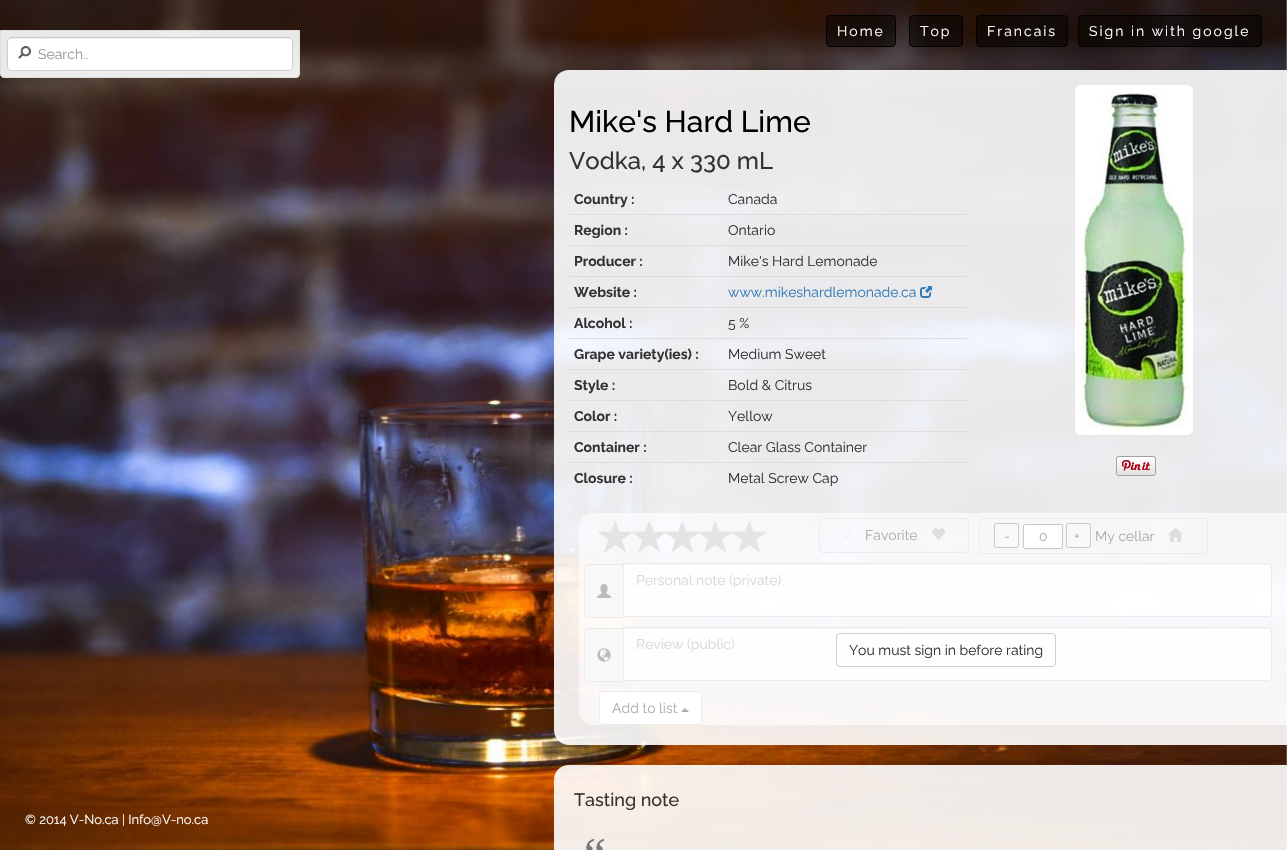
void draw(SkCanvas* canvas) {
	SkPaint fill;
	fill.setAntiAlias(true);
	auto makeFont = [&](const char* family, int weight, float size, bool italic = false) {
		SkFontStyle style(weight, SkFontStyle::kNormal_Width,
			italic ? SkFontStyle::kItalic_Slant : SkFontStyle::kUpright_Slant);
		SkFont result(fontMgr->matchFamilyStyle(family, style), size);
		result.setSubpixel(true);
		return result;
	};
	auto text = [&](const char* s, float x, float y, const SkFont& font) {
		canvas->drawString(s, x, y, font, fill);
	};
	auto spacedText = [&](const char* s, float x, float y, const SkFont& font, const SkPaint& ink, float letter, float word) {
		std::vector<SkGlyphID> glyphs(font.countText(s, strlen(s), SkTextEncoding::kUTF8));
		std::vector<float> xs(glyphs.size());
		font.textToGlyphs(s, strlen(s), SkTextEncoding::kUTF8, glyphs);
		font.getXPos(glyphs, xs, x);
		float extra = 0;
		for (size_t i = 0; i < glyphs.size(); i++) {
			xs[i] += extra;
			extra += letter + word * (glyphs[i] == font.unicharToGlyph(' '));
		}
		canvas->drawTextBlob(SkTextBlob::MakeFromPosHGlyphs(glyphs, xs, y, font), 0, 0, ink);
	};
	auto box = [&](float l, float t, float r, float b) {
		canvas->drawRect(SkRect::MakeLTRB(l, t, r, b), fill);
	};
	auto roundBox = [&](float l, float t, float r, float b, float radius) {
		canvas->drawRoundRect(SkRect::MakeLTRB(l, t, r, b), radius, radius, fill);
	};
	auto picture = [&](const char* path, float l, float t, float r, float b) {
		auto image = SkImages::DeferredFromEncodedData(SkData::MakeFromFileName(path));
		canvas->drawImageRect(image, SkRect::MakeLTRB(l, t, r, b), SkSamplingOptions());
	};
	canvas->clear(0xFFFFFFFF);
	picture("image0.png", 0, 0, 1287, 850);
	fill.setColor(0x80000000);
	canvas->drawRoundRect(SkRect::MakeLTRB(826.5f, 15.5f, 895.5f, 46.5f), 3.5f, 3.5f, fill);
	fill.setStyle(SkPaint::kStroke_Style);
	fill.setStrokeWidth(1);
	fill.setColor(0xFF000000);
	canvas->drawRoundRect(SkRect::MakeLTRB(826.5f, 15.5f, 895.5f, 46.5f), 3.5f, 3.5f, fill);
	fill.setStyle(SkPaint::kFill_Style);
	fill.setColor(0x80000000);
	canvas->drawRoundRect(SkRect::MakeLTRB(909.5f, 15.5f, 962.5f, 46.5f), 3.5f, 3.5f, fill);
	fill.setStyle(SkPaint::kStroke_Style);
	fill.setColor(0xFF000000);
	canvas->drawRoundRect(SkRect::MakeLTRB(909.5f, 15.5f, 962.5f, 46.5f), 3.5f, 3.5f, fill);
	fill.setStyle(SkPaint::kFill_Style);
	fill.setColor(0x80000000);
	canvas->drawRoundRect(SkRect::MakeLTRB(976.5f, 15.5f, 1067.5f, 46.5f), 3.5f, 3.5f, fill);
	fill.setStyle(SkPaint::kStroke_Style);
	fill.setColor(0xFF000000);
	canvas->drawRoundRect(SkRect::MakeLTRB(976.5f, 15.5f, 1067.5f, 46.5f), 3.5f, 3.5f, fill);
	fill.setStyle(SkPaint::kFill_Style);
	fill.setColor(0x80000000);
	canvas->drawRoundRect(SkRect::MakeLTRB(1078.5f, 15.5f, 1261.5f, 46.5f), 3.5f, 3.5f, fill);
	fill.setStyle(SkPaint::kStroke_Style);
	fill.setColor(0xFF000000);
	canvas->drawRoundRect(SkRect::MakeLTRB(1078.5f, 15.5f, 1261.5f, 46.5f), 3.5f, 3.5f, fill);
	fill.setStyle(SkPaint::kFill_Style);
	fill.setColor(0xE6FFFFFF);
	canvas->drawPath(SkPathBuilder().moveTo(0.5f, 30.5f).lineTo(299.5f, 30.5f).lineTo(299.5f, 74).cubicTo(299.5f, 76, 298, 77.5f, 296, 77.5f).lineTo(4, 77.5f).cubicTo(2, 77.5f, 0.5f, 76, 0.5f, 74).close().detach(), fill);
	fill.setStyle(SkPaint::kStroke_Style);
	fill.setColor(0xFFDDDDDD);
	canvas->drawPath(SkPathBuilder().moveTo(0.5f, 30.5f).lineTo(299.5f, 30.5f).lineTo(299.5f, 74).cubicTo(299.5f, 76, 298, 77.5f, 296, 77.5f).lineTo(4, 77.5f).cubicTo(2, 77.5f, 0.5f, 76, 0.5f, 74).close().detach(), fill);
	fill.setStyle(SkPaint::kFill_Style);
	fill.setColor(0xFFFFFFFF);
	roundBox(7, 37, 293, 71, 4);
	picture("image1.png", 18, 46, 31, 59);
	fill.setColor(0xFFECECEC);
	canvas->drawPath(SkPathBuilder().moveTo(11, 39).lineTo(289, 39).cubicTo(291, 39, 292, 40, 292, 42).lineTo(292, 41).cubicTo(292, 39, 291, 38, 289, 38).lineTo(11, 38).cubicTo(9, 38, 8, 39, 8, 41).lineTo(8, 42).cubicTo(8, 40, 9, 39, 11, 39).close().detach(), fill);
	fill.setStyle(SkPaint::kStroke_Style);
	fill.setColor(0xFFCCCCCC);
	canvas->drawRoundRect(SkRect::MakeLTRB(7.5f, 37.5f, 292.5f, 70.5f), 3.5f, 3.5f, fill);
	fill.setStyle(SkPaint::kFill_Style);
	fill.setColor(0xE6FFFFFF);
	canvas->drawPath(SkPathBuilder().moveTo(569, 70).lineTo(1287, 70).lineTo(1287, 745).lineTo(569, 745).cubicTo(560.5f, 745, 554, 738.5f, 554, 730).lineTo(554, 85).cubicTo(554, 76.5f, 560.5f, 70, 569, 70).close().detach(), fill);
	fill.setColor(0xFFDDDDDD);
	box(569, 214, 967, 215);
	box(569, 245, 967, 246);
	box(569, 276, 967, 277);
	picture("image2.png", 920, 286, 932, 298);
	box(569, 307, 967, 308);
	box(569, 338, 967, 339);
	box(569, 369, 967, 370);
	box(569, 400, 967, 401);
	box(569, 431, 967, 432);
	box(569, 462, 967, 463);
	picture("image3.png", 1075, 85, 1193, 435);
	picture("image4.png", 1116, 456, 1156, 476);
	picture("image5.png", 598, 521, 633, 553);
	picture("image6.png", 632, 521, 667, 553);
	picture("image7.png", 665, 521, 700, 553);
	picture("image8.png", 698, 521, 733, 553);
	picture("image9.png", 732, 521, 767, 553);
	fill.setStyle(SkPaint::kStroke_Style);
	fill.setColor(0xFFCCCCCC);
	canvas->drawRoundRect(SkRect::MakeLTRB(819.5f, 518.5f, 968.5f, 552.5f), 3.5f, 3.5f, fill);
	picture("image10.png", 932, 528, 945, 540);
	canvas->drawRoundRect(SkRect::MakeLTRB(979.5f, 518.5f, 1207.5f, 553.5f), 3.5f, 3.5f, fill);
	fill.setStyle(SkPaint::kFill_Style);
	fill.setColor(0xFFEFEFEF);
	canvas->drawRoundRect(SkRect::MakeLTRB(994.5f, 523.5f, 1018.5f, 547.5f), 1.5f, 1.5f, fill);
	fill.setStyle(SkPaint::kStroke_Style);
	fill.setColor(0xFF767676);
	canvas->drawRoundRect(SkRect::MakeLTRB(994.5f, 523.5f, 1018.5f, 547.5f), 1.5f, 1.5f, fill);
	fill.setStyle(SkPaint::kFill_Style);
	fill.setColor(0xFFFFFFFF);
	canvas->drawRoundRect(SkRect::MakeLTRB(1023.5f, 524.5f, 1062.5f, 548.5f), 1.5f, 1.5f, fill);
	fill.setStyle(SkPaint::kStroke_Style);
	fill.setColor(0xFF767676);
	canvas->drawRoundRect(SkRect::MakeLTRB(1023.5f, 524.5f, 1062.5f, 548.5f), 1.5f, 1.5f, fill);
	fill.setStyle(SkPaint::kFill_Style);
	fill.setColor(0xFFEFEFEF);
	canvas->drawRoundRect(SkRect::MakeLTRB(1066.5f, 523.5f, 1090.5f, 547.5f), 1.5f, 1.5f, fill);
	fill.setStyle(SkPaint::kStroke_Style);
	fill.setColor(0xFF767676);
	canvas->drawRoundRect(SkRect::MakeLTRB(1066.5f, 523.5f, 1090.5f, 547.5f), 1.5f, 1.5f, fill);
	picture("image11.png", 1168, 527, 1183, 542);
	fill.setStyle(SkPaint::kFill_Style);
	fill.setColor(0xFFEEEEEE);
	canvas->drawPath(SkPathBuilder().moveTo(588, 564).lineTo(623, 564).lineTo(623, 618).lineTo(588, 618).cubicTo(586, 618, 584, 616, 584, 614).lineTo(584, 568).cubicTo(584, 566, 586, 564, 588, 564).close().detach(), fill);
	fill.setColor(0xFFCCCCCC);
	canvas->drawPath(SkPathBuilder(SkPathFillType::kEvenOdd).moveTo(588, 564).lineTo(623, 564).lineTo(623, 618).lineTo(588, 618).cubicTo(586, 618, 584, 616, 584, 614).lineTo(584, 568).cubicTo(584, 566, 586, 564, 588, 564).close().moveTo(588, 565).lineTo(623, 565).lineTo(623, 617).lineTo(588, 617).cubicTo(586, 617, 585, 616, 585, 614).lineTo(585, 568).cubicTo(585, 566, 586, 565, 588, 565).close().detach(), fill);
	picture("image12.png", 597, 584, 611, 598);
	fill.setColor(0xD9FFFFFF);
	canvas->drawPath(SkPathBuilder().moveTo(623, 563).lineTo(1268, 563).cubicTo(1270, 563, 1272, 565, 1272, 567).lineTo(1272, 613).cubicTo(1272, 615, 1270, 617, 1268, 617).lineTo(623, 617).close().detach(), fill);
	fill.setColor(0x12000000);
	canvas->drawPath(SkPathBuilder().moveTo(624, 565).lineTo(1268, 565).cubicTo(1270, 565, 1271, 566, 1271, 568).lineTo(1271, 567).cubicTo(1271, 565, 1270, 564, 1268, 564).lineTo(624, 564).close().detach(), fill);
	fill.setStyle(SkPaint::kStroke_Style);
	fill.setColor(0xFFCCCCCC);
	canvas->drawPath(SkPathBuilder().moveTo(623.5f, 563.5f).lineTo(1268, 563.5f).cubicTo(1270, 563.5f, 1271.5f, 565, 1271.5f, 567).lineTo(1271.5f, 613).cubicTo(1271.5f, 615, 1270, 616.5f, 1268, 616.5f).lineTo(623.5f, 616.5f).close().detach(), fill);
	fill.setStyle(SkPaint::kFill_Style);
	fill.setColor(0xFFEEEEEE);
	canvas->drawPath(SkPathBuilder().moveTo(588, 628).lineTo(623, 628).lineTo(623, 682).lineTo(588, 682).cubicTo(586, 682, 584, 680, 584, 678).lineTo(584, 632).cubicTo(584, 630, 586, 628, 588, 628).close().detach(), fill);
	fill.setColor(0xFFCCCCCC);
	canvas->drawPath(SkPathBuilder(SkPathFillType::kEvenOdd).moveTo(588, 628).lineTo(623, 628).lineTo(623, 682).lineTo(588, 682).cubicTo(586, 682, 584, 680, 584, 678).lineTo(584, 632).cubicTo(584, 630, 586, 628, 588, 628).close().moveTo(588, 629).lineTo(623, 629).lineTo(623, 681).lineTo(588, 681).cubicTo(586, 681, 585, 680, 585, 678).lineTo(585, 632).cubicTo(585, 630, 586, 629, 588, 629).close().detach(), fill);
	picture("image13.png", 597, 648, 611, 662);
	fill.setColor(0xD9FFFFFF);
	canvas->drawPath(SkPathBuilder().moveTo(623, 627).lineTo(1268, 627).cubicTo(1270, 627, 1272, 629, 1272, 631).lineTo(1272, 677).cubicTo(1272, 679, 1270, 681, 1268, 681).lineTo(623, 681).close().detach(), fill);
	fill.setColor(0x12000000);
	canvas->drawPath(SkPathBuilder().moveTo(624, 629).lineTo(1268, 629).cubicTo(1270, 629, 1271, 630, 1271, 632).lineTo(1271, 631).cubicTo(1271, 629, 1270, 628, 1268, 628).lineTo(624, 628).close().detach(), fill);
	fill.setStyle(SkPaint::kStroke_Style);
	fill.setColor(0xFFCCCCCC);
	canvas->drawPath(SkPathBuilder().moveTo(623.5f, 627.5f).lineTo(1268, 627.5f).cubicTo(1270, 627.5f, 1271.5f, 629, 1271.5f, 631).lineTo(1271.5f, 677).cubicTo(1271.5f, 679, 1270, 680.5f, 1268, 680.5f).lineTo(623.5f, 680.5f).close().detach(), fill);
	fill.setStyle(SkPaint::kFill_Style);
	fill.setColor(0xFFFFFFFF);
	canvas->drawRoundRect(SkRect::MakeLTRB(599.5f, 691.5f, 701.5f, 724.5f), 3.5f, 3.5f, fill);
	fill.setStyle(SkPaint::kStroke_Style);
	fill.setColor(0xFFCCCCCC);
	canvas->drawRoundRect(SkRect::MakeLTRB(599.5f, 691.5f, 701.5f, 724.5f), 3.5f, 3.5f, fill);
	fill.setStyle(SkPaint::kFill_Style);
	fill.setColor(0xFF333333);
	canvas->drawPath(SkPathBuilder().moveTo(689, 712).lineTo(681, 712).lineTo(685, 708).close().detach(), fill);
	fill.setColor(0xE6FFFFFF);
	canvas->drawPath(SkPathBuilder().moveTo(569, 765).lineTo(1287, 765).lineTo(1287, 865).lineTo(569, 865).cubicTo(560.5f, 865, 554, 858.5f, 554, 850).lineTo(554, 780).cubicTo(554, 771.5f, 560.5f, 765, 569, 765).close().detach(), fill);
	fill.setColor(0xFFEEEEEE);
	box(574, 840, 579, 850);
	auto font1 = makeFont("Raleway", 400, 14);
	fill.setColor(0xFFFFFFFF);
	spacedText("Home", 837, 36, font1, fill, 2, 0);
	spacedText("Top", 920, 36, font1, fill, 2, 0);
	spacedText("Francais", 987, 36, font1, fill, 2, 0);
	spacedText("Sign in with google", 1089, 36, font1, fill, 2, 0);
	fill.setColor(0xFF999999);
	text("Search..", 38, 59, font1);
	auto font2 = makeFont("Raleway", 400, 13);
	fill.setColor(0xFFFFFFFF);
	text("© 2014 V-No.ca | Info@V-no.ca", 25, 824, font2);
	auto font3 = makeFont("Raleway", 500, 30);
	fill.setColor(0xFF000000);
	text("Mike's Hard Lime", 569, 132, font3);
	auto font4 = makeFont("Raleway", 500, 24);
	fill.setColor(0xFF333333);
	text("Vodka, 4 x 330 mL", 569, 169, font4);
	auto font5 = makeFont("Raleway", 700, 14);
	text("Country :", 574, 204, font5);
	text("Canada", 728, 204, font1);
	text("Region :", 574, 235, font5);
	text("Ontario", 728, 235, font1);
	text("Producer :", 574, 266, font5);
	text("Mike's Hard Lemonade", 728, 266, font1);
	text("Website :", 574, 297, font5);
	fill.setColor(0xFF337AB7);
	text("www.mikeshardlemonade.ca", 728, 297, font1);
	fill.setColor(0xFF333333);
	text("Alcohol :", 574, 328, font5);
	text("5 %", 728, 328, font1);
	text("Grape variety(ies) :", 574, 359, font5);
	text("Medium Sweet", 728, 359, font1);
	text("Style :", 574, 390, font5);
	text("Bold & Citrus", 728, 390, font1);
	text("Color :", 574, 421, font5);
	text("Yellow", 728, 421, font1);
	text("Container :", 574, 452, font5);
	text("Clear Glass Container", 728, 452, font1);
	text("Closure :", 574, 483, font5);
	text("Metal Screw Cap", 728, 483, font1);
	auto font6 = makeFont("DejaVu Sans", 400, 12);
	fill.setColor(0xFFDDDDDD);
	text("✔", 842, 540, font6);
	fill.setColor(0xFF333333);
	text("Favorite", 865, 540, font1);
	text("-", 1004, 541, font1);
	text("0", 1039, 541, font1);
	text("+", 1074, 541, font1);
	text("My cellar", 1095, 541, font1);
	fill.setColor(0xFF999999);
	text("Personal note (private)", 636, 585, font1);
	text("Review (public)", 636, 649, font1);
	fill.setColor(0xFF333333);
	text("Add to list", 612, 713, font1);
	fill.setColor(0x99FFFFFF);
	canvas->drawPath(SkPathBuilder().moveTo(594, 513).lineTo(1287, 513).lineTo(1287, 725).lineTo(594, 725).cubicTo(585.5f, 725, 579, 718.5f, 579, 710).lineTo(579, 528).cubicTo(579, 519.5f, 585.5f, 513, 594, 513).close().detach(), fill);
	fill.setStyle(SkPaint::kStroke_Style);
	fill.setColor(0xFFCCCCCC);
	canvas->drawRoundRect(SkRect::MakeLTRB(836.5f, 633.5f, 1055.5f, 666.5f), 3.5f, 3.5f, fill);
	fill.setStyle(SkPaint::kFill_Style);
	fill.setColor(0xFF333333);
	text("You must sign in before rating", 849, 655, font1);
	auto font7 = makeFont("Raleway", 500, 18);
	text("Tasting note", 574, 806, font7);
	auto font8 = makeFont("Liberation Serif", 400, 50, true);
	fill.setColor(0xFF7A7A7A);
	text("“", 579, 872, font8);
}
